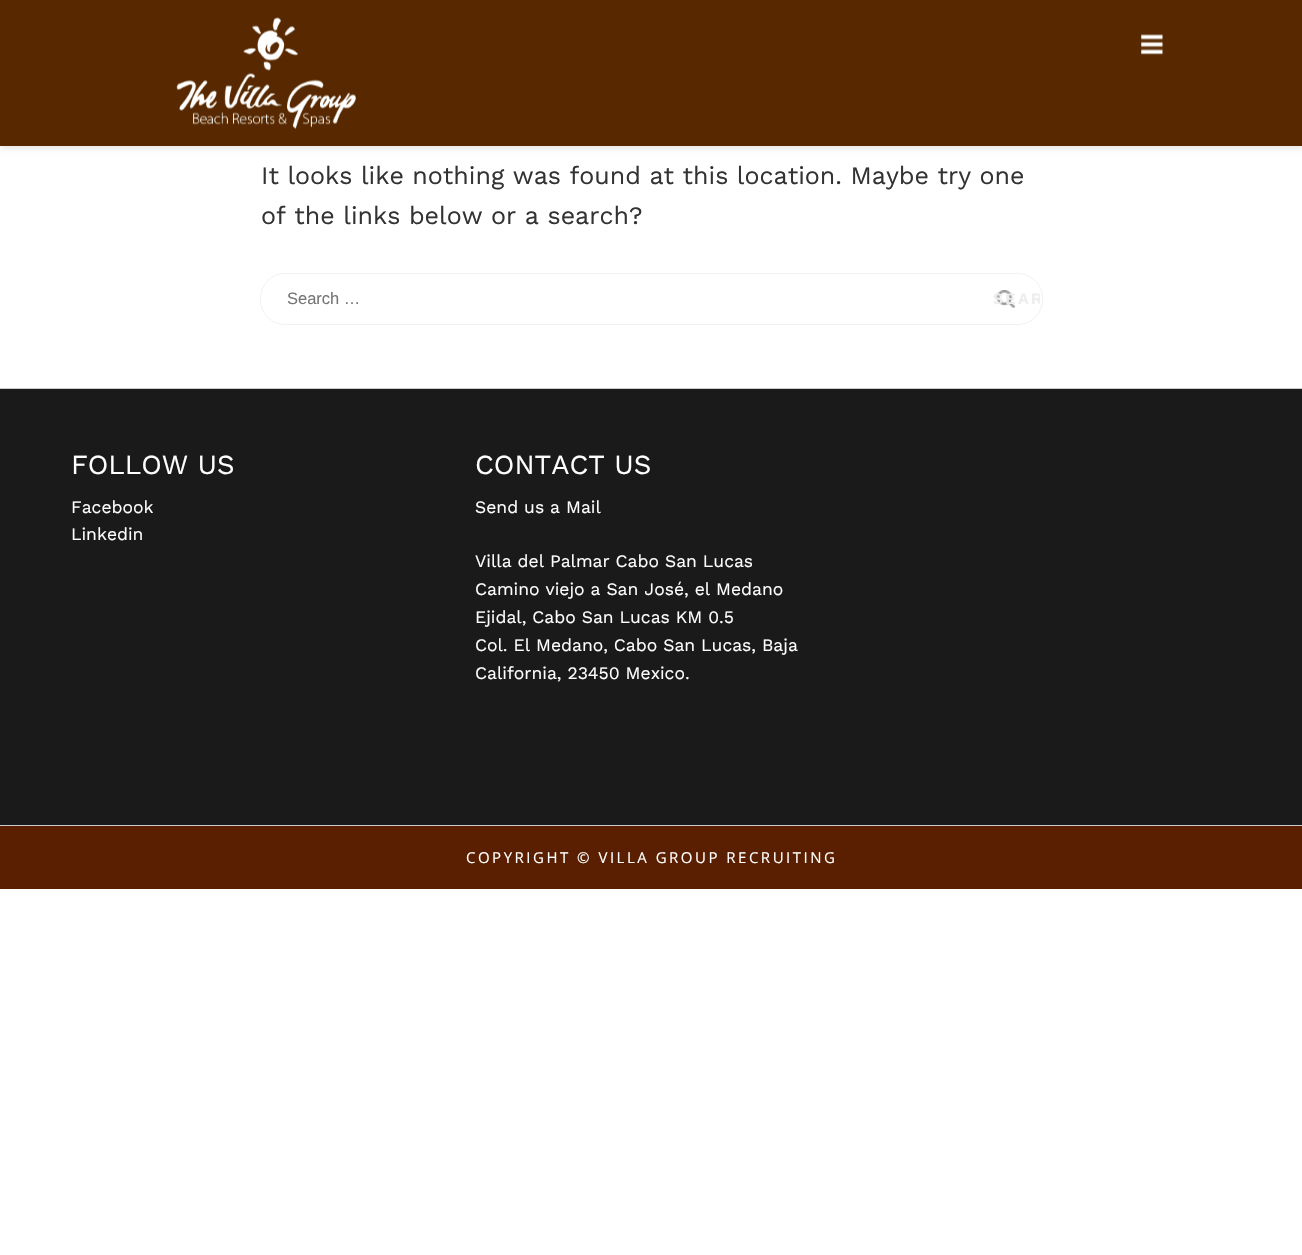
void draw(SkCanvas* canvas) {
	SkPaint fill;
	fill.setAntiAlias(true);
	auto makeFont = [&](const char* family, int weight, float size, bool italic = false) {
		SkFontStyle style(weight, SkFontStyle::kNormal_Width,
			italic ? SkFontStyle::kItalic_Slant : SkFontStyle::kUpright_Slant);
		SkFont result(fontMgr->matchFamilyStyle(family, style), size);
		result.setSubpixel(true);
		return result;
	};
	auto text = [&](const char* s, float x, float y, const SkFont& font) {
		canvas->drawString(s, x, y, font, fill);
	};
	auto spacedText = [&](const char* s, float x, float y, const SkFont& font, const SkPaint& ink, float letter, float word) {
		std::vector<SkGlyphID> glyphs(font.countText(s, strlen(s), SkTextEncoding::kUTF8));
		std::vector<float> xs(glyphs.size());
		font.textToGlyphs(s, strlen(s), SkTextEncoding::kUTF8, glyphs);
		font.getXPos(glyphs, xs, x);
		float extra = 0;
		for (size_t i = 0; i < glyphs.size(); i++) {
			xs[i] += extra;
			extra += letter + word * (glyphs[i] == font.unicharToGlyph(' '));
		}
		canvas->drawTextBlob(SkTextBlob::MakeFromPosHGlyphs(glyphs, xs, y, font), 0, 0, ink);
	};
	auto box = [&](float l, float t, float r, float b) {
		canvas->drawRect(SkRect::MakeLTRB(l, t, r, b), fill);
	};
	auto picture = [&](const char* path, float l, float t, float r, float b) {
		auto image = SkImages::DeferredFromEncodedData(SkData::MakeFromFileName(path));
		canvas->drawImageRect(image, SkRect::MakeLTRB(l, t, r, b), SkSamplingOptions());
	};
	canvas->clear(0xFFFFFFFF);
	fill.setColor(0x1A000000);
	fill.setMaskFilter(SkMaskFilter::MakeBlur(kNormal_SkBlurStyle, 3));
	canvas->drawRect(SkRect::MakeLTRB(1, 1, 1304, 148), fill);
	fill.setMaskFilter(nullptr);
	fill.setColor(0xFF582900);
	box(0, 0, 1302, 146);
	picture("image0.png", 176, 17, 356, 129);
	picture("image1.png", 1141, 34, 1163, 55);
	fill.setStyle(SkPaint::kStroke_Style);
	fill.setStrokeWidth(1);
	fill.setColor(0xFFF1F1F1);
	canvas->drawRoundRect(SkRect::MakeLTRB(260.5f, 273.5f, 1042.5f, 324.5f), 24.5f, 24.5f, fill);
	picture("image2.png", 996, 290, 1015, 308);
	fill.setStyle(SkPaint::kFill_Style);
	fill.setColor(0xFF1A1A1A);
	box(0, 389, 1302, 825);
	fill.setColor(0xFFCCCCCC);
	box(0, 388, 1302, 389);
	fill.setColor(0xFF591F00);
	box(0, 826, 1302, 889);
	fill.setColor(0xFFCCCCCC);
	box(0, 825, 1302, 826);
	auto font1 = makeFont("Work Sans", 400, 25);
	fill.setColor(0xFF333333);
	text("It looks like nothing was found at this location. Maybe try one", 261, 184, font1);
	text("of the links below or a search?", 261, 224, font1);
	auto font2 = makeFont("Liberation Sans", 400, 16.5f);
	fill.setColor(0xFF757575);
	text("Search …", 287, 304, font2);
	canvas->save();
	canvas->clipPath(SkPathBuilder().moveTo(995, 275).lineTo(1016, 275).cubicTo(1029.5f, 275, 1040, 285.5f, 1040, 299).cubicTo(1040, 312.5f, 1029.5f, 323, 1016, 323).lineTo(995, 323).cubicTo(981.5f, 323, 971, 312.5f, 971, 299).cubicTo(971, 285.5f, 981.5f, 275, 995, 275).close().detach(), true);
	auto font3 = makeFont("Liberation Sans", 700, 15);
	fill.setColor(0xFFECECEC);
	spacedText("SEAR", 993, 304, font3, fill, 2.5f, 0);
	canvas->restore();
	auto font4 = makeFont("Work Sans", 400, 27.5f);
	fill.setColor(0xFFFFFFFF);
	text("FOLLOW US", 71, 474, font4);
	auto font5 = makeFont("Work Sans", 400, 17.5f);
	text("Facebook", 71, 513, font5);
	text("Linkedin", 71, 540, font5);
	text("CONTACT US", 475, 474, font4);
	text("Send us a Mail", 475, 513, font5);
	text("Villa del Palmar Cabo San Lucas", 475, 567, font5);
	text("Camino viejo a San José, el Medano", 475, 595, font5);
	text("Ejidal, Cabo San Lucas KM 0.5", 475, 623, font5);
	text("Col. El Medano, Cabo San Lucas, Baja", 475, 651, font5);
	text("California, 23450 Mexico.", 475, 679, font5);
	auto font6 = makeFont("Open Sans", 400, 15);
	spacedText("COPYRIGHT © VILLA GROUP RECRUITING", 466, 863, font6, fill, 2.5f, 0);
}
